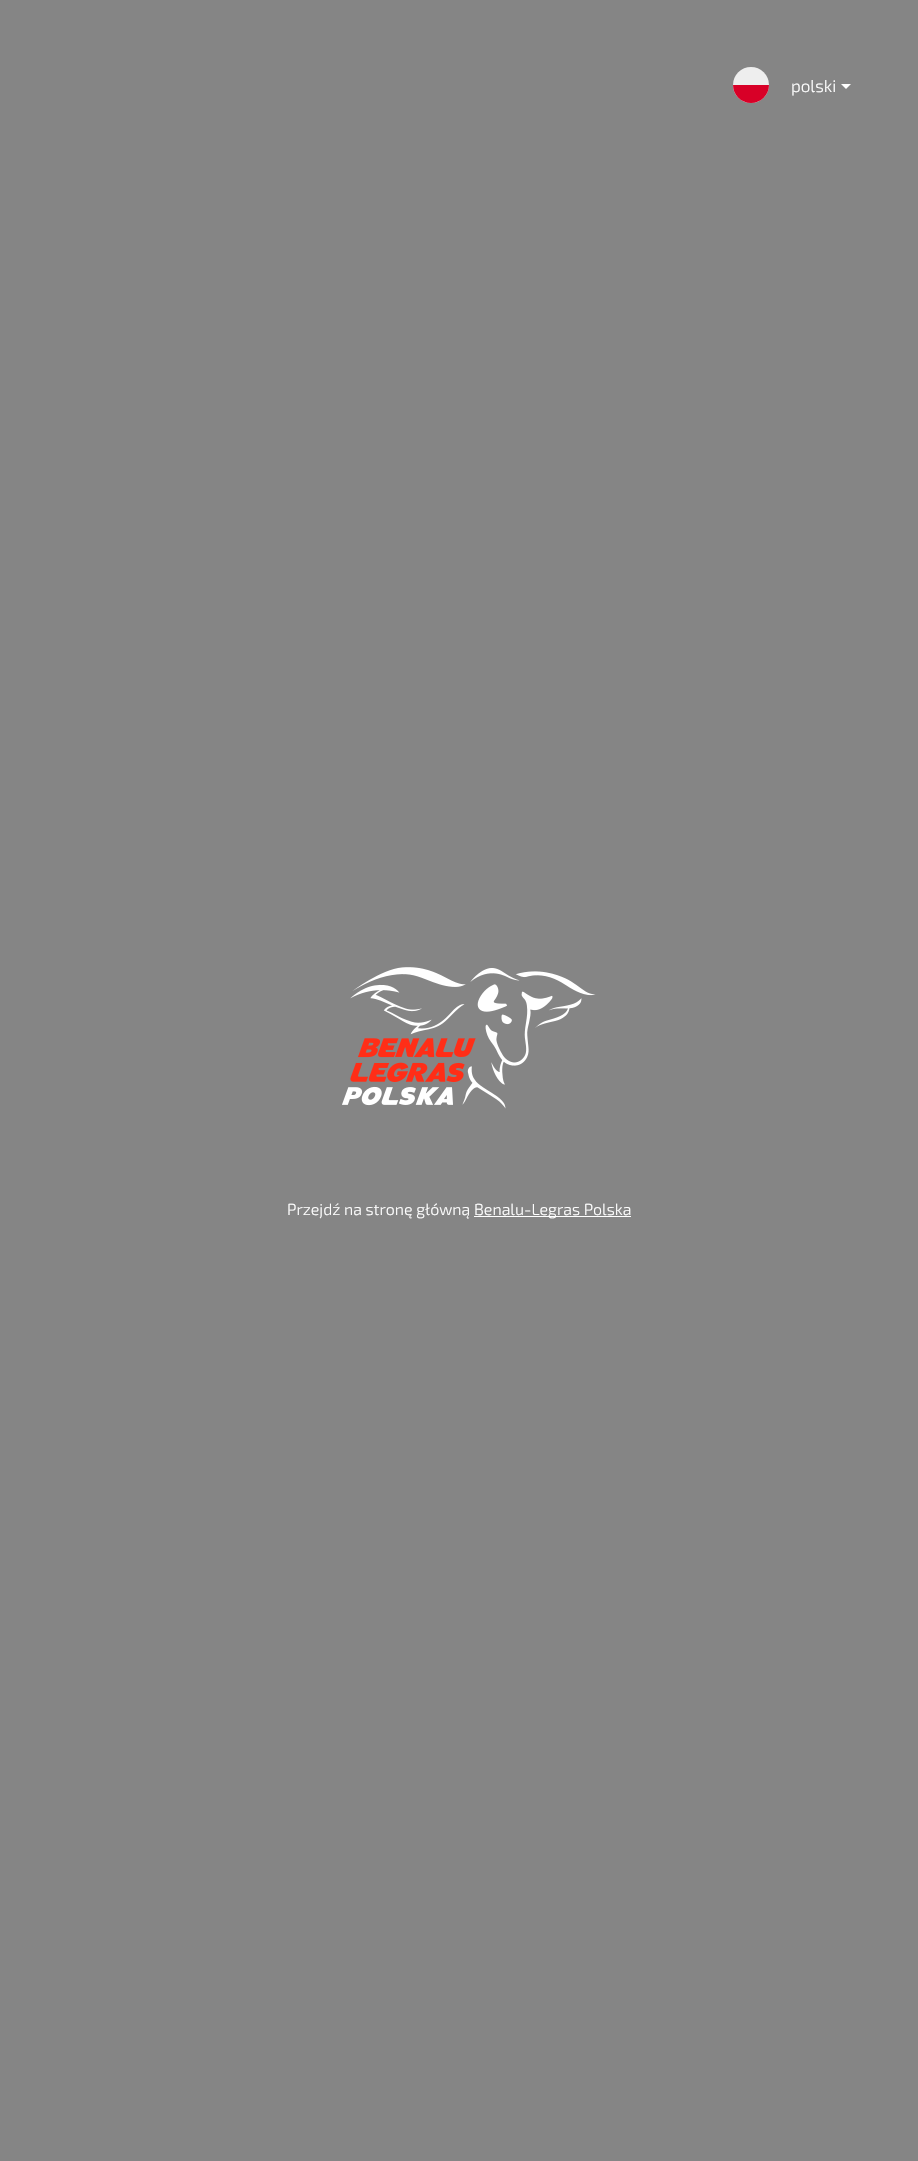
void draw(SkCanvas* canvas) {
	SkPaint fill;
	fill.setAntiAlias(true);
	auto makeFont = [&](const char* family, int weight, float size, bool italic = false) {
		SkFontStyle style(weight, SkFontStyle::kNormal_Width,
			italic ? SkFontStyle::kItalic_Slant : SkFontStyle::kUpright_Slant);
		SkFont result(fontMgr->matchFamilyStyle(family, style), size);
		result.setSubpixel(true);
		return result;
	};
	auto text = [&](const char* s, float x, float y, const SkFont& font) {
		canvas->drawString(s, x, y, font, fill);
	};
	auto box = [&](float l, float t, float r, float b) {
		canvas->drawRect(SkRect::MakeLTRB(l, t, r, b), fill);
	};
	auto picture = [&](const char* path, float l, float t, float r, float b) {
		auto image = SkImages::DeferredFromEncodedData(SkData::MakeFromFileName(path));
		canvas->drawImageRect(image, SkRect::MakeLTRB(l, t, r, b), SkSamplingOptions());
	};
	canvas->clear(0xFF858585);
	fill.setColor(0xFFEEEEEE);
	canvas->drawCircle(751, 85, 18, fill);
	fill.setColor(0xFFD80027);
	canvas->drawPath(SkPathBuilder().moveTo(769, 85).cubicTo(769, 95, 761, 103, 751, 103).cubicTo(741, 103, 733, 95, 733, 85).detach(), fill);
	fill.setColor(0xFFFFFFFF);
	canvas->drawPath(SkPathBuilder().moveTo(841, 84).lineTo(851, 84).lineTo(846, 89).close().detach(), fill);
	picture("image0.png", 342, 967, 596, 1109);
	box(474, 1216, 631, 1217);
	auto font1 = makeFont("Exo 2", 300, 17);
	text("polski", 791, 92, font1);
	auto font2 = makeFont("Exo 2", 300, 16);
	text("Przejdź na stronę główną", 287, 1215, font2);
	text("Benalu-Legras Polska", 474, 1215, font2);
}
